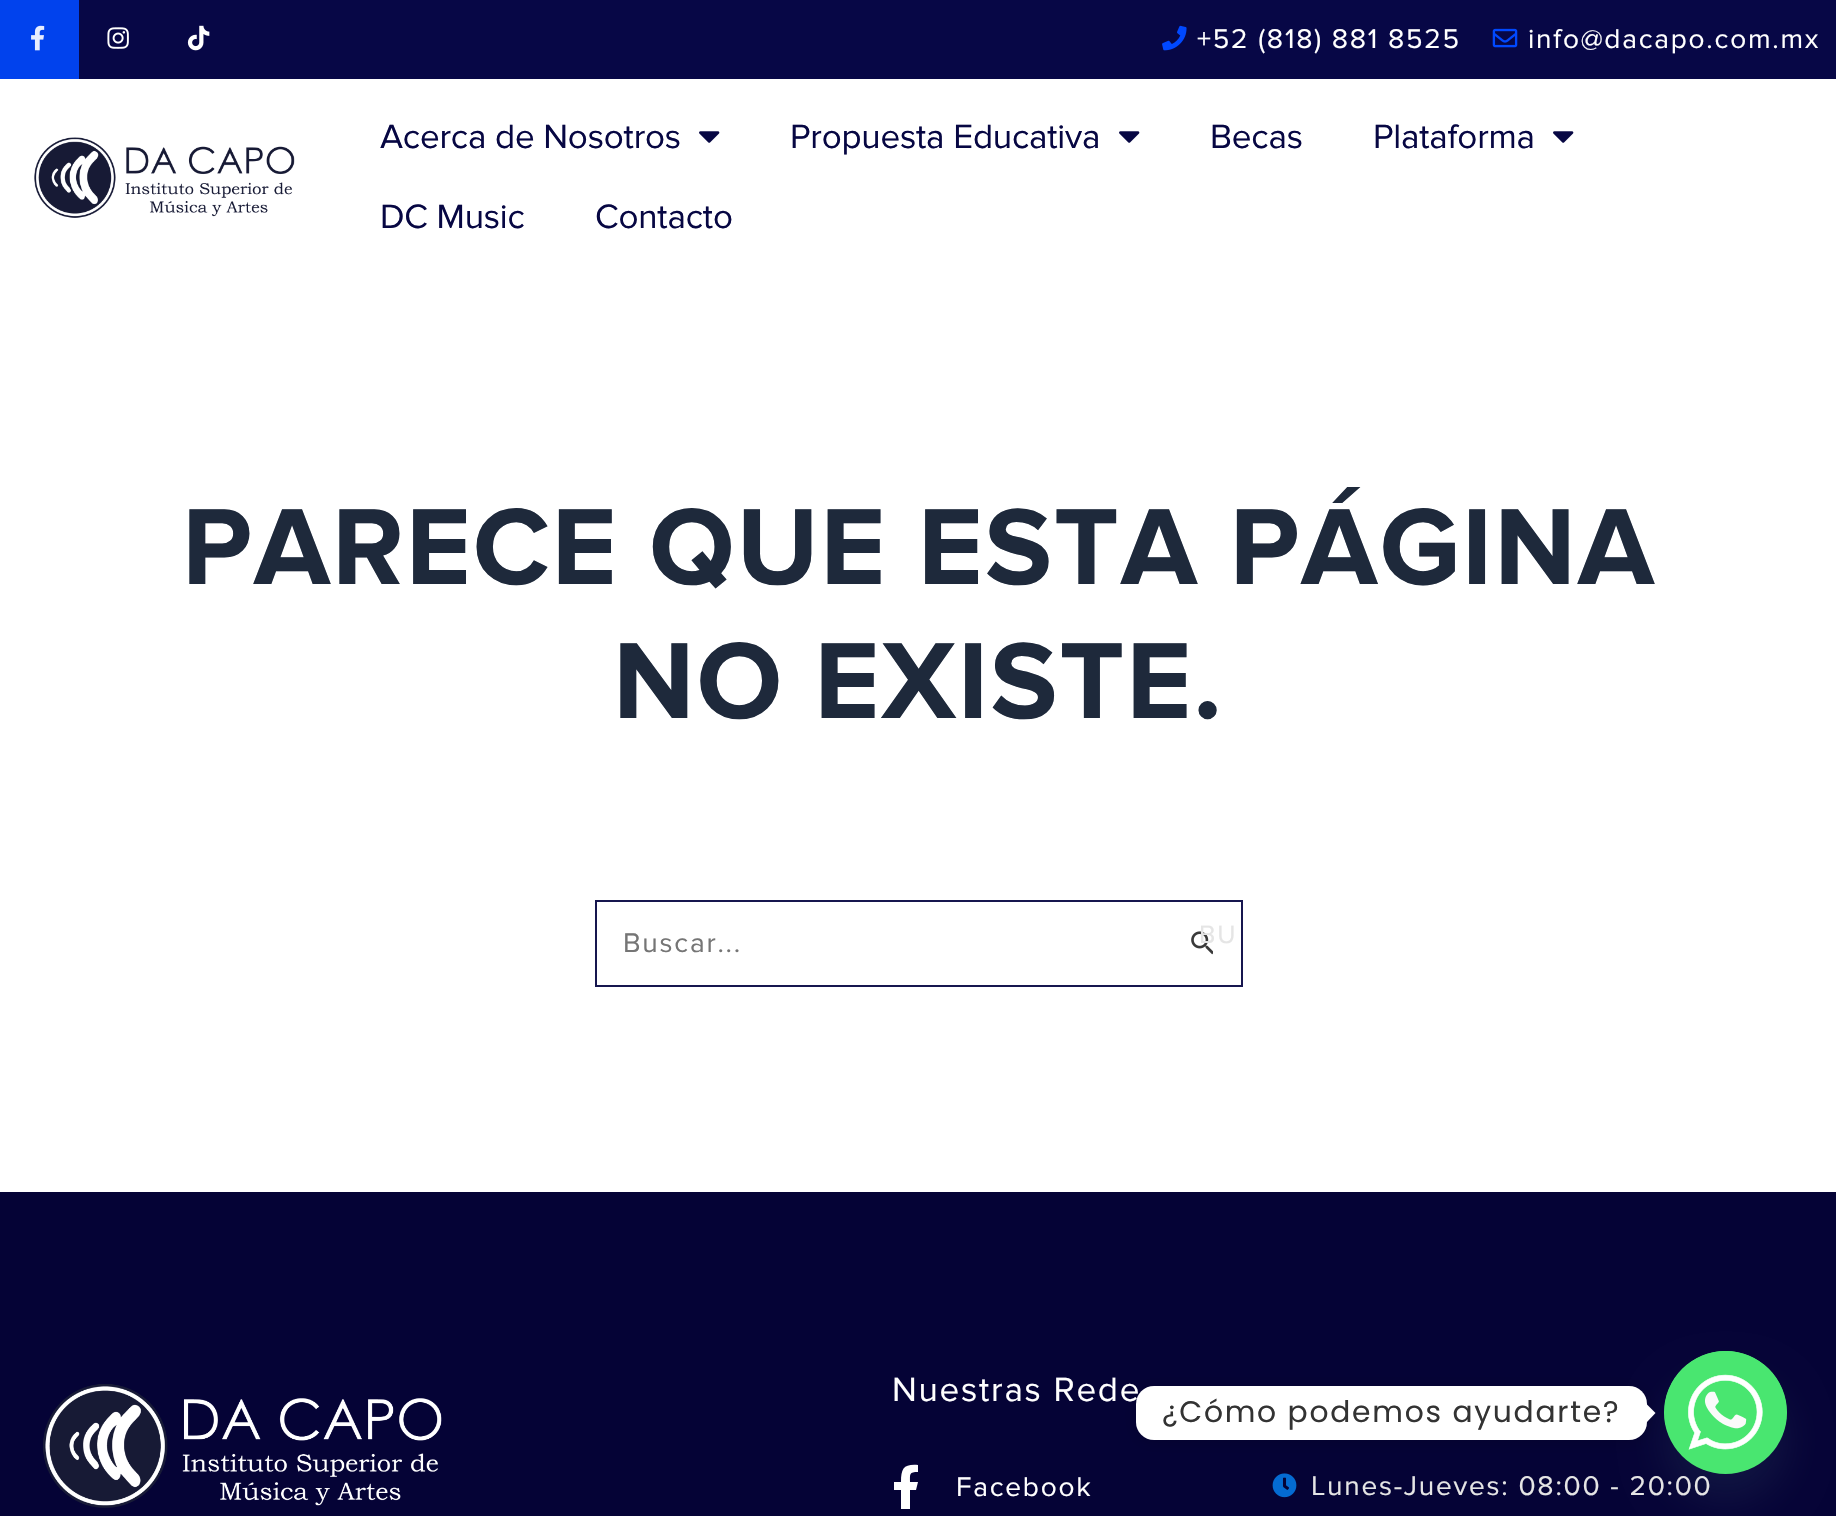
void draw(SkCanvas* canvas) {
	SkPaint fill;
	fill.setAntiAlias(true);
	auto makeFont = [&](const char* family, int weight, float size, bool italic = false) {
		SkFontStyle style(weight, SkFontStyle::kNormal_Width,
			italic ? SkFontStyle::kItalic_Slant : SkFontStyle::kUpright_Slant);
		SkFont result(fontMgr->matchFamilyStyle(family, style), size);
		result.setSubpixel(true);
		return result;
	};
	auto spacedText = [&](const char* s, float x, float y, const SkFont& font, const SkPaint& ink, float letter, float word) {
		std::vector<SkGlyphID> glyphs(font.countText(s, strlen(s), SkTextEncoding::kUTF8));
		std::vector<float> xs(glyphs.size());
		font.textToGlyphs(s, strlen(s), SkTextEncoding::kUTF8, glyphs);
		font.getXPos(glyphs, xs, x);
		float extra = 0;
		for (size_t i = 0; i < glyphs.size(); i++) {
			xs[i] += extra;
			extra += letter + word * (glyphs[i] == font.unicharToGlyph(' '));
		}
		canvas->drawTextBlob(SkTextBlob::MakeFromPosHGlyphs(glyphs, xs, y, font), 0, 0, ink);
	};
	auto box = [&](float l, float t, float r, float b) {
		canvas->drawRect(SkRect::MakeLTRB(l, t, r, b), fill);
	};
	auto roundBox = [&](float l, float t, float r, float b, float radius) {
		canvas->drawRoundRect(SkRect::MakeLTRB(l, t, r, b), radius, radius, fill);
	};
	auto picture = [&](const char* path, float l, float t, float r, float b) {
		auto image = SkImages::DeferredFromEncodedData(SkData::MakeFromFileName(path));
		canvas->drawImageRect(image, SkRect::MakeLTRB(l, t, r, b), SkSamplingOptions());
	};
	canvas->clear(0xFFFFFFFF);
	fill.setColor(0xFF070746);
	box(79, 0, 1836, 79);
	fill.setColor(0xFF0142ED);
	box(0, 0, 79, 79);
	picture("image0.png", 31, 25, 45, 51);
	picture("image1.png", 107, 27, 129, 49);
	picture("image2.png", 187, 25, 210, 51);
	picture("image3.png", 1162, 25, 1187, 51);
	picture("image4.png", 1492, 28, 1518, 48);
	picture("image5.png", 34, 137, 295, 218);
	picture("image6.png", 699, 131, 720, 143);
	picture("image6.png", 1119, 131, 1140, 143);
	picture("image6.png", 1553, 131, 1574, 143);
	fill.setStyle(SkPaint::kStroke_Style);
	fill.setStrokeWidth(2);
	fill.setColor(0xFF17164F);
	canvas->drawRect(SkRect::MakeLTRB(596, 901, 1242, 986), fill);
	picture("image7.png", 1191, 931, 1213, 955);
	fill.setStyle(SkPaint::kFill_Style);
	fill.setColor(0xFF050336);
	box(0, 1192, 1836, 1516);
	picture("image8.png", 43, 1384, 442, 1508);
	fill.setColor(0xFFFFFFFF);
	canvas->drawPath(SkPathBuilder().moveTo(916, 1490).lineTo(910, 1490).lineTo(910, 1509).lineTo(901, 1509).lineTo(901, 1490).lineTo(894, 1490).lineTo(894, 1482).lineTo(901, 1482).cubicTo(901, 1468, 904, 1464, 918, 1465).lineTo(918, 1472).cubicTo(909, 1472, 910, 1474, 910, 1482).lineTo(918, 1482).close().detach(), fill);
	picture("image9.png", 1272, 1473, 1297, 1498);
	fill.setColor(0x2949687E);
	fill.setMaskFilter(SkMaskFilter::MakeBlur(kNormal_SkBlurStyle, 21));
	canvas->drawRoundRect(SkRect::MakeLTRB(1664, 1379, 1787, 1502), 61.5f, 61.5f, fill);
	fill.setMaskFilter(nullptr);
	fill.setColor(0xFF49E670);
	canvas->drawCircle(1725.5f, 1412.5f, 61.5f, fill);
	picture("image10.png", 1664, 1351, 1787, 1450);
	fill.setColor(0x26000000);
	fill.setMaskFilter(SkMaskFilter::MakeBlur(kNormal_SkBlurStyle, 7));
	canvas->drawRoundRect(SkRect::MakeLTRB(1136, 1388, 1647, 1442), 18, 18, fill);
	fill.setMaskFilter(nullptr);
	fill.setColor(0xFFFFFFFF);
	roundBox(1136, 1386, 1647, 1440, 18);
	canvas->drawPath(SkPathBuilder().moveTo(1647, 1422).lineTo(1647, 1404.5f).lineTo(1655.5f, 1413).close().detach(), fill);
	auto font1 = makeFont("Proxima Nova", 400, 28);
	spacedText("+52 (818) 881 8525", 1197, 48, font1, fill, 1.75f, 0);
	spacedText("info@dacapo.com.mx", 1528, 48, font1, fill, 1.75f, 0);
	auto font2 = makeFont("Proxima Nova", 400, 35);
	fill.setColor(0xFF070743);
	spacedText("Acerca de Nosotros", 380, 148, font2, fill, -0.2f, 0);
	spacedText("Propuesta Educativa", 790, 148, font2, fill, -0.2f, 0);
	spacedText("Becas", 1210, 148, font2, fill, -0.2f, 0);
	spacedText("Plataforma", 1373, 148, font2, fill, -0.2f, 0);
	spacedText("DC Music", 380, 228, font2, fill, -0.2f, 0);
	spacedText("Contacto", 595, 228, font2, fill, -0.2f, 0);
	auto font3 = makeFont("Proxima Nova", 700, 112);
	fill.setColor(0xFF1E293B);
	spacedText("PARECE QUE ESTA PÁGINA", 182, 584, font3, fill, 1.75f, 0);
	spacedText("NO EXISTE.", 613, 718, font3, fill, 1.75f, 0);
	fill.setColor(0xFF757575);
	spacedText("Buscar...", 623, 952, font1, fill, 1.75f, 0);
	auto font4 = makeFont("Proxima Nova", 400, 26);
	fill.setColor(0xFFE5E5E5);
	spacedText("BU", 1199, 943, font4, fill, 2, 0);
	fill.setColor(0xFFFFFFFF);
	spacedText("Nuestras Rede", 892, 1401, font2, fill, 1.75f, 0);
	spacedText("Facebook", 956, 1496, font1, fill, 1.75f, 0);
	fill.setColor(0xFFE5E5E5);
	spacedText("Lunes-Jueves: 08:00 - 20:00", 1311, 1495, font1, fill, 1.75f, 0);
	auto font5 = makeFont("Poppins", 400, 29.75f);
	fill.setColor(0xFF333333);
	spacedText("¿Cómo podemos ayudarte?", 1162, 1422, font5, fill, 1.75f, 0);
}
